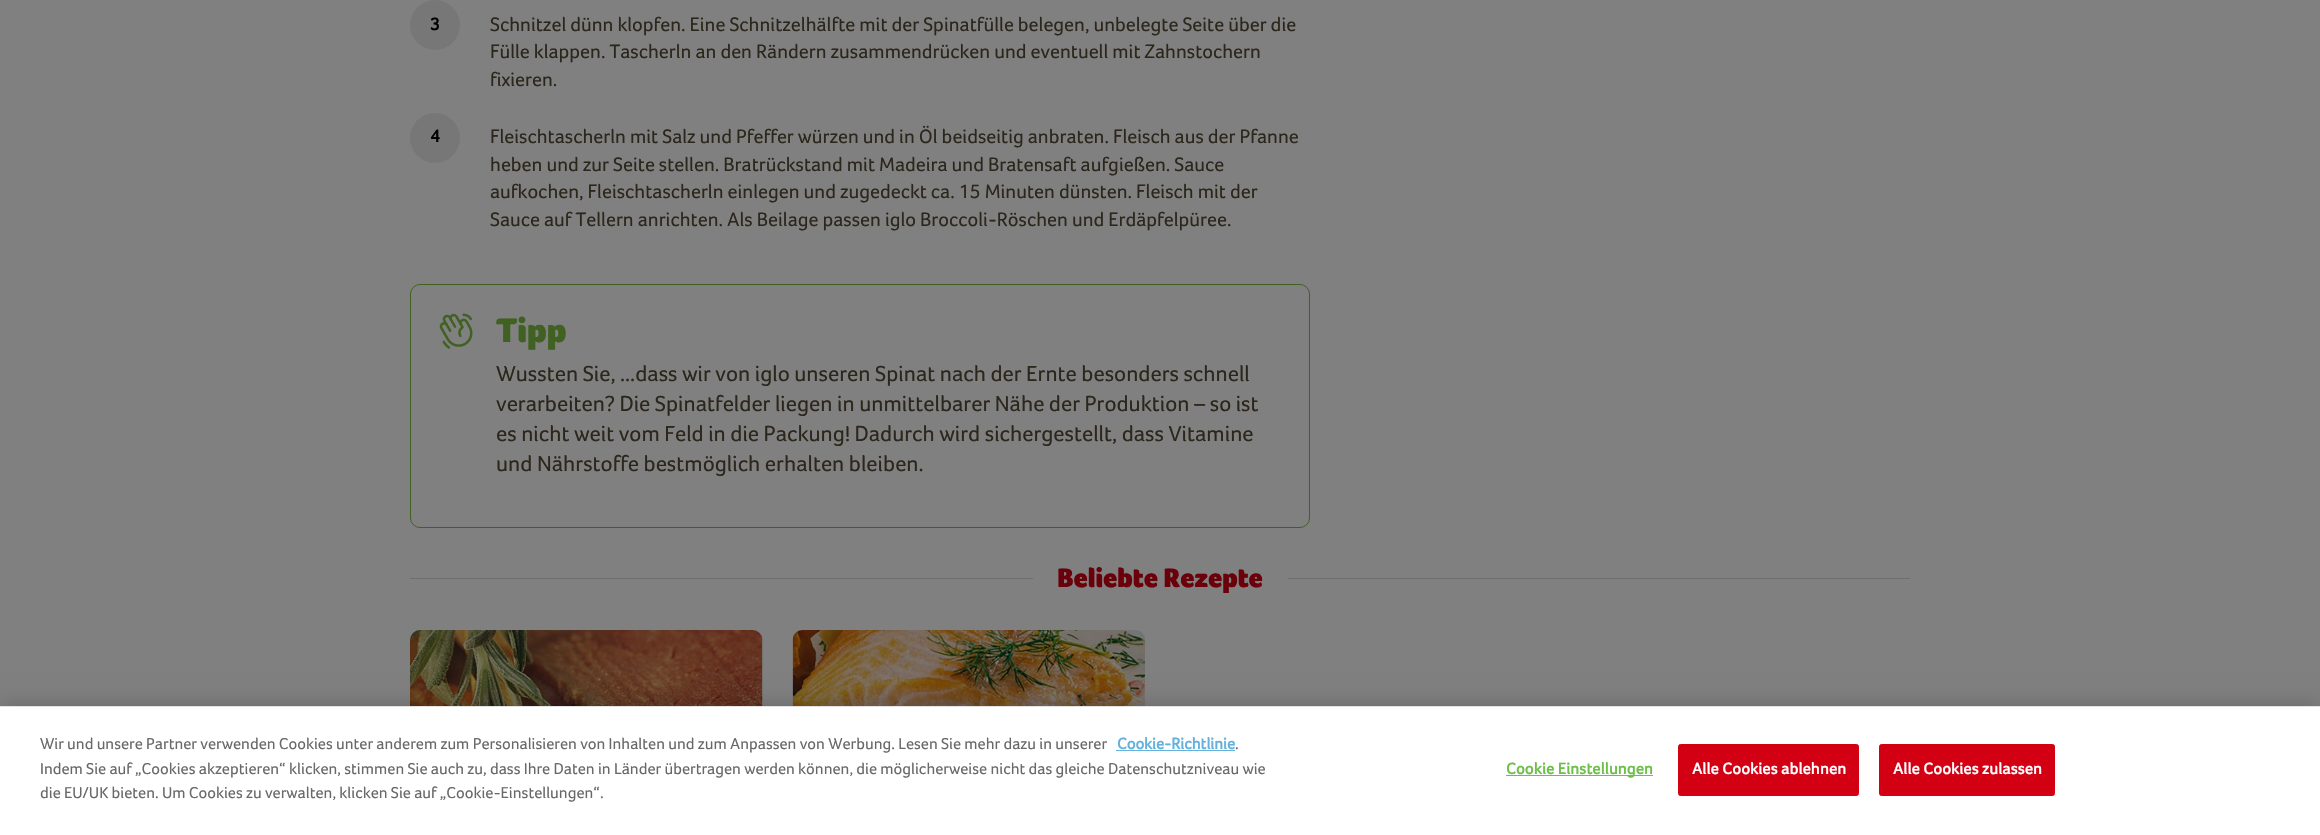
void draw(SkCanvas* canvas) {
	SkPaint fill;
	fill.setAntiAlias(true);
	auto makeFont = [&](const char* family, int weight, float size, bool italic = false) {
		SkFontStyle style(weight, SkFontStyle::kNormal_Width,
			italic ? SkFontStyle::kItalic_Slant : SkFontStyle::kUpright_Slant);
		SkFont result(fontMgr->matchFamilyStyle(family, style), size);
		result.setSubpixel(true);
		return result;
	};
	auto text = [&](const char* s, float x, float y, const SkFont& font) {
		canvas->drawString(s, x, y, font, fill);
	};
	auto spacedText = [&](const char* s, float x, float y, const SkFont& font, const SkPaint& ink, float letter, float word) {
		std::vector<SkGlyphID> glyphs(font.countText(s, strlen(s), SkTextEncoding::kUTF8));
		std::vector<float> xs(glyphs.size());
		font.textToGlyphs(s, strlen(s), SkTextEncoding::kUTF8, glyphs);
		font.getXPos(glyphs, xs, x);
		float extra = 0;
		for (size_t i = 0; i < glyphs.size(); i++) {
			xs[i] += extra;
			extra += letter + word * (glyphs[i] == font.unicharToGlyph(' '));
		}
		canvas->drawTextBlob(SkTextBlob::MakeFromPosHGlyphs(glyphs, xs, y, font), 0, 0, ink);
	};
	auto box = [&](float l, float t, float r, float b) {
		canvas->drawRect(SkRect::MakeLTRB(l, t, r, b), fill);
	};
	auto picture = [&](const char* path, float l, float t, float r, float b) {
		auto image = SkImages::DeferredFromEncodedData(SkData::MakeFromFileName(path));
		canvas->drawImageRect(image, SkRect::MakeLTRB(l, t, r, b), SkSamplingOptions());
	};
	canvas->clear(0xFF808080);
	fill.setColor(0xFF777777);
	canvas->drawCircle(435, 25, 25, fill);
	canvas->drawCircle(435, 138, 25, fill);
	fill.setStyle(SkPaint::kStroke_Style);
	fill.setStrokeWidth(1);
	fill.setColor(0xFF406121);
	canvas->drawRoundRect(SkRect::MakeLTRB(410.5f, 284.5f, 1309.5f, 527.5f), 9.5f, 9.5f, fill);
	picture("image0.png", 439, 313, 473, 349);
	fill.setStyle(SkPaint::kFill_Style);
	fill.setColor(0xFF6F6E6C);
	box(410, 578, 1033, 579);
	box(1288, 578, 1910, 579);
	fill.setColor(0xFF797979);
	canvas->drawPath(SkPathBuilder().moveTo(420, 630).lineTo(753, 630).cubicTo(758.5f, 630, 763, 634.5f, 763, 640).lineTo(763, 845).lineTo(410, 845).lineTo(410, 640).cubicTo(410, 634.5f, 414.5f, 630, 420, 630).close().detach(), fill);
	picture("image1.png", 410, 630, 763, 706);
	canvas->drawPath(SkPathBuilder().moveTo(803, 630).lineTo(1135, 630).cubicTo(1140.5f, 630, 1145, 634.5f, 1145, 640).lineTo(1145, 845).lineTo(793, 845).lineTo(793, 640).cubicTo(793, 634.5f, 797.5f, 630, 803, 630).close().detach(), fill);
	picture("image2.png", 792, 630, 1145, 706);
	fill.setColor(0x33000000);
	fill.setMaskFilter(SkMaskFilter::MakeBlur(kNormal_SkBlurStyle, 11));
	canvas->drawRect(SkRect::MakeLTRB(0, 706, 2320, 835), fill);
	fill.setMaskFilter(nullptr);
	fill.setColor(0xFFFFFFFF);
	box(0, 707, 2320, 835);
	fill.setColor(0xFFE3E3E3);
	box(0, 706, 2320, 707);
	fill.setColor(0xFF64B2DC);
	box(1116, 750, 1235, 751);
	fill.setColor(0xFF6CC04A);
	box(1506, 775, 1653, 776);
	fill.setColor(0xFFD30013);
	canvas->drawRoundRect(SkRect::MakeLTRB(1678.5f, 744.5f, 1858.5f, 795.5f), 2, 2, fill);
	fill.setStyle(SkPaint::kStroke_Style);
	canvas->drawRoundRect(SkRect::MakeLTRB(1678.5f, 744.5f, 1858.5f, 795.5f), 2, 2, fill);
	fill.setStyle(SkPaint::kFill_Style);
	canvas->drawRoundRect(SkRect::MakeLTRB(1879.5f, 744.5f, 2054.5f, 795.5f), 2, 2, fill);
	fill.setStyle(SkPaint::kStroke_Style);
	canvas->drawRoundRect(SkRect::MakeLTRB(1879.5f, 744.5f, 2054.5f, 795.5f), 2, 2, fill);
	auto font1 = makeFont("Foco", 700, 18);
	fill.setStyle(SkPaint::kFill_Style);
	fill.setColor(0xFF000000);
	text("3", 430, 30, font1);
	auto font2 = makeFont("Foco", 400, 20);
	fill.setColor(0xFF2C271C);
	text("Schnitzel dünn klopfen. Eine Schnitzelhälfte mit der Spinatfülle belegen, unbelegte Seite über die", 490, 31, font2);
	text("Fülle klappen. Tascherln an den Rändern zusammendrücken und eventuell mit Zahnstochern", 490, 58, font2);
	text("fixieren.", 490, 86, font2);
	fill.setColor(0xFF000000);
	text("4", 430, 142, font1);
	fill.setColor(0xFF2C271C);
	text("Fleischtascherln mit Salz und Pfeffer würzen und in Öl beidseitig anbraten. Fleisch aus der Pfanne", 490, 143, font2);
	text("heben und zur Seite stellen. Bratrückstand mit Madeira und Bratensaft aufgießen. Sauce", 490, 171, font2);
	text("aufkochen, Fleischtascherln einlegen und zugedeckt ca. 15 Minuten dünsten. Fleisch mit der", 490, 198, font2);
	text("Sauce auf Tellern anrichten. Als Beilage passen iglo Broccoli-Röschen und Erdäpfelpüree.", 490, 226, font2);
	auto font3 = makeFont("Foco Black", 900, 35);
	fill.setColor(0xFF406121);
	text("Tipp", 496, 342, font3);
	auto font4 = makeFont("Foco", 400, 22.5f);
	fill.setColor(0xFF2C271C);
	text("Wussten Sie, ...dass wir von iglo unseren Spinat nach der Ernte besonders schnell", 496, 381, font4);
	text("verarbeiten? Die Spinatfelder liegen in unmittelbarer Nähe der Produktion – so ist", 496, 411, font4);
	text("es nicht weit vom Feld in die Packung! Dadurch wird sichergestellt, dass Vitamine", 496, 441, font4);
	text("und Nährstoffe bestmöglich erhalten bleiben.", 496, 471, font4);
	auto font5 = makeFont("Foco Black", 900, 27.5f);
	fill.setColor(0xFF6A000A);
	text("Beliebte Rezepte", 1057, 587, font5);
	auto font6 = makeFont("Foco", 400, 16.25f);
	fill.setColor(0xFF696969);
	text("Wir und unsere Partner verwenden Cookies unter anderem zum Personalisieren von Inhalten und zum Anpassen von Werbung. Lesen Sie mehr dazu in unserer", 40, 749, font6);
	auto font7 = makeFont("Foco", 700, 16.25f);
	fill.setColor(0xFF64B2DC);
	text("Cookie-Richtlinie", 1117, 749, font7);
	fill.setColor(0xFF696969);
	text(".", 1235, 749, font6);
	text("Indem Sie auf „Cookies akzeptieren“ klicken, stimmen Sie auch zu, dass Ihre Daten in Länder übertragen werden können, die möglicherweise nicht das gleiche Datenschutzniveau wie", 40, 774, font6);
	text("die EU/UK bieten. Um Cookies zu verwalten, klicken Sie auf „Cookie-Einstellungen“.", 40, 798, font6);
	fill.setColor(0xFF6CC04A);
	spacedText("Cookie Einstellungen", 1506, 774, font7, fill, 0.2f, 0);
	fill.setColor(0xFFFFFFFF);
	spacedText("Alle Cookies ablehnen", 1692, 774, font7, fill, 0.2f, 0);
	spacedText("Alle Cookies zulassen", 1893, 774, font7, fill, 0.2f, 0);
}
